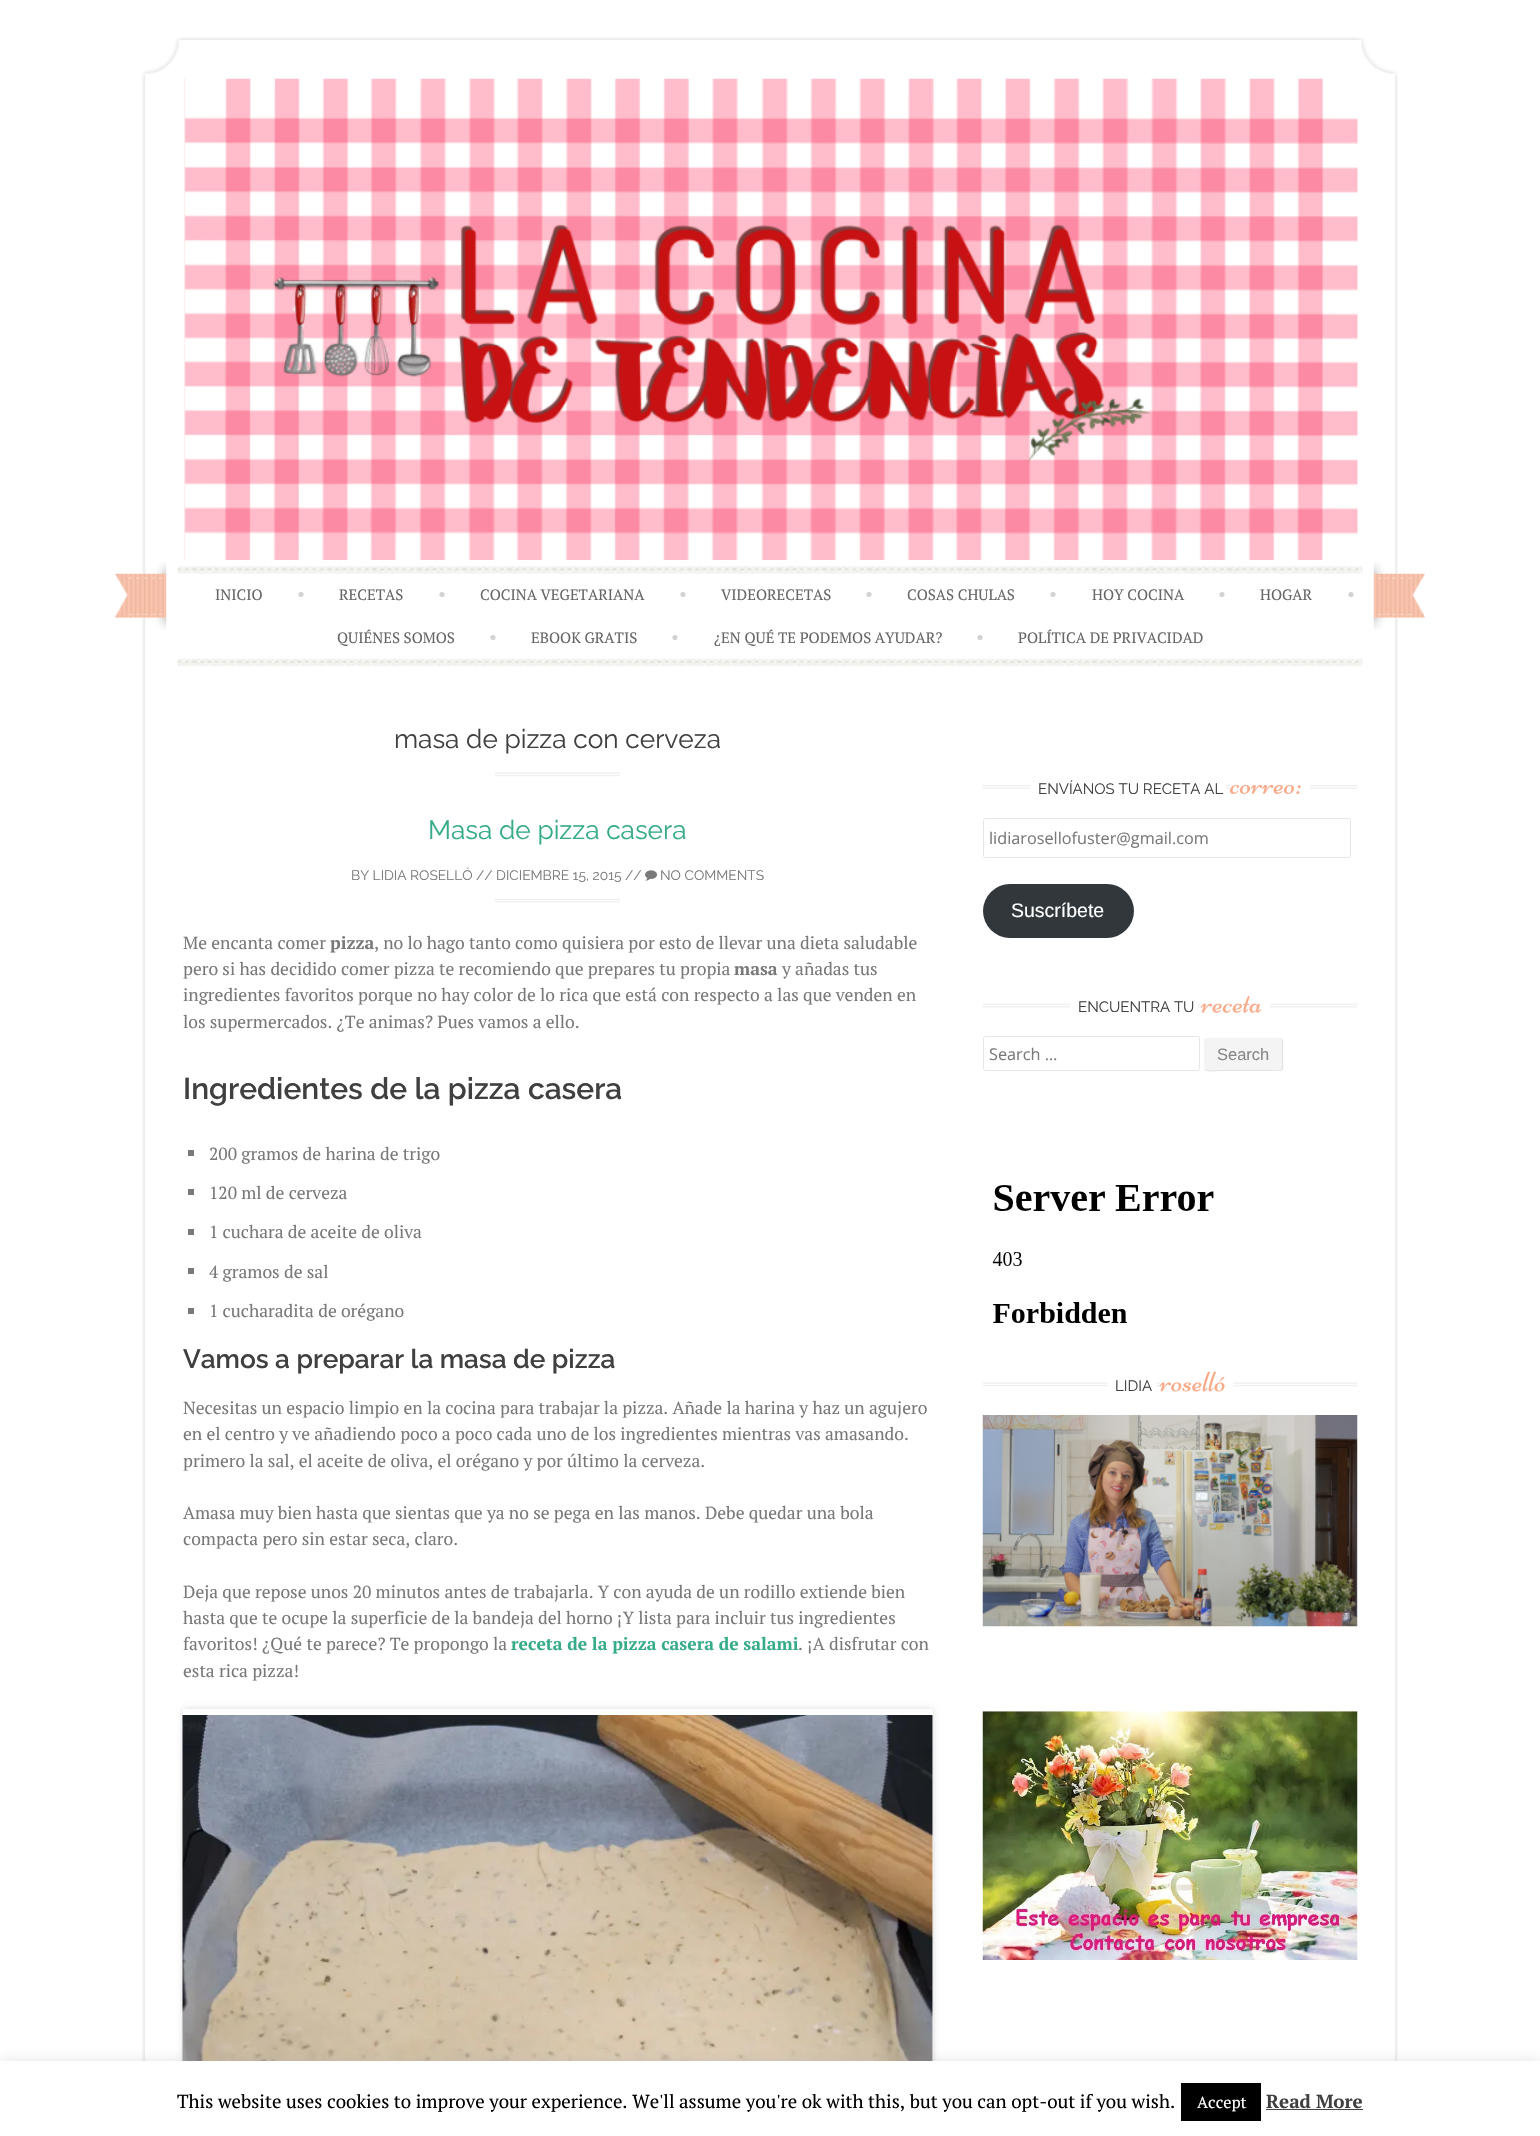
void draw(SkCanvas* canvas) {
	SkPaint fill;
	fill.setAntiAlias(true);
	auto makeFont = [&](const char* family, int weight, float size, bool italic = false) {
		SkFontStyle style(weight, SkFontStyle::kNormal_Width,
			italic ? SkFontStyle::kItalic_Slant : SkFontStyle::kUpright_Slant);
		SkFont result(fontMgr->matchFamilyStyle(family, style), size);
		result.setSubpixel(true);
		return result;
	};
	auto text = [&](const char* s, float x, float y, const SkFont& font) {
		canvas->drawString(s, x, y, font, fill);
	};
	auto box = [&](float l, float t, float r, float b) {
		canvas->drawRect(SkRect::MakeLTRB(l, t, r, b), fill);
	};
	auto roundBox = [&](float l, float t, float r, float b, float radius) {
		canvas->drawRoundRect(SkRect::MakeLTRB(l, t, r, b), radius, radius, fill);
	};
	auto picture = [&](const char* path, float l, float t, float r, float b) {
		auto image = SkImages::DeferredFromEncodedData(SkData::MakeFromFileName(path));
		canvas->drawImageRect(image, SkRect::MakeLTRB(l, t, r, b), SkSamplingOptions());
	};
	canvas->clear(0xFFFFFFFF);
	picture("image0.png", 142, 37, 1398, 79);
	picture("image7.png", 142, 666, 1398, 2061);
	picture("image1.png", 142, 78, 1398, 667);
	picture("image2.png", 183, 78, 1358, 560);
	picture("image3.png", 115, 562, 167, 630);
	picture("image4.png", 177, 566, 1363, 574);
	picture("image5.png", 177, 658, 1363, 667);
	picture("image6.png", 1373, 562, 1425, 630);
	picture("image8.png", 495, 772, 620, 777);
	picture("image9.png", 495, 898, 620, 903);
	picture("image10.png", 645, 870, 657, 881);
	fill.setColor(0xFF797979);
	box(188, 1150, 194, 1156);
	box(188, 1189, 194, 1195);
	box(188, 1229, 194, 1235);
	box(188, 1268, 194, 1274);
	box(188, 1308, 194, 1314);
	canvas->save();
	canvas->clipPath(SkPathBuilder(SkPathFillType::kEvenOdd).moveTo(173, 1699).lineTo(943, 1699).lineTo(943, 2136).lineTo(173, 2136).close().moveTo(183, 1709).lineTo(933, 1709).lineTo(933, 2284).lineTo(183, 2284).close().detach(), true);
	fill.setColor(0x26000000);
	fill.setMaskFilter(SkMaskFilter::MakeBlur(kNormal_SkBlurStyle, 3));
	canvas->drawRect(SkRect::MakeLTRB(183, 1709, 933, 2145), fill);
	fill.setMaskFilter(nullptr);
	canvas->restore();
	picture("image11.png", 182, 1715, 933, 2061);
	picture("image12.png", 982, 785, 1358, 789);
	fill.setColor(0xFFFFFFFF);
	box(1030, 785, 1226, 789);
	box(1230, 785, 1310, 789);
	picture("image13.png", 1230, 784, 1301, 795);
	fill.setStyle(SkPaint::kStroke_Style);
	fill.setStrokeWidth(1);
	fill.setColor(0xFFE6E6E6);
	canvas->drawRoundRect(SkRect::MakeLTRB(983.5f, 818.5f, 1350.5f, 857.5f), 2, 2, fill);
	fill.setStyle(SkPaint::kFill_Style);
	fill.setColor(0xFF32373C);
	roundBox(983, 884, 1134, 938, 27);
	picture("image14.png", 982, 1003, 1358, 1008);
	fill.setColor(0xFFFFFFFF);
	box(1070, 1003, 1198, 1008);
	box(1201, 1003, 1270, 1008);
	picture("image15.png", 1200, 996, 1262, 1013);
	fill.setStyle(SkPaint::kStroke_Style);
	fill.setColor(0xFFE6E6E6);
	canvas->drawRoundRect(SkRect::MakeLTRB(983.5f, 1036.5f, 1199.5f, 1070.5f), 2, 2, fill);
	fill.setStyle(SkPaint::kFill_Style);
	fill.setColor(0xFFF4F4F4);
	roundBox(1204, 1038, 1283, 1071, 2.5f);
	fill.setColor(0x12000000);
	canvas->drawPath(SkPathBuilder().moveTo(1204, 1068).cubicTo(1204, 1074, 1218, 1071, 1219, 1071).lineTo(1268, 1071).cubicTo(1287, 1071, 1283, 1073, 1283, 1054).cubicTo(1283, 1052, 1284, 1040, 1282, 1038).lineTo(1282, 1063).cubicTo(1282, 1073, 1281, 1070, 1268, 1070).lineTo(1218, 1070).cubicTo(1214, 1070, 1204, 1072, 1204, 1068).close().detach(), fill);
	picture("image16.png", 992, 1185, 1214, 1323);
	picture("image17.png", 982, 1382, 1358, 1387);
	fill.setColor(0xFFFFFFFF);
	box(1108, 1382, 1156, 1387);
	box(1160, 1382, 1233, 1387);
	picture("image18.png", 1159, 1371, 1225, 1392);
	picture("image19.png", 982, 1415, 1358, 1627);
	picture("image20.png", 982, 1711, 1358, 1960);
	fill.setColor(0x4DACABAB);
	fill.setMaskFilter(SkMaskFilter::MakeBlur(kNormal_SkBlurStyle, 6));
	canvas->drawRect(SkRect::MakeLTRB(0, 2060, 1540, 2135), fill);
	fill.setMaskFilter(nullptr);
	fill.setColor(0xFFFFFFFF);
	box(0, 2061, 1540, 2136);
	fill.setColor(0xFF000000);
	box(1181, 2083, 1261, 2121);
	fill.setColor(0xFF444444);
	box(1266, 2109, 1363, 2110);
	auto font1 = makeFont("PT Serif", 400, 15);
	fill.setColor(0xFF666666);
	text("INICIO", 215, 600, font1);
	auto font2 = makeFont("PT Serif", 400, 17.5f);
	fill.setColor(0xFFD2D2D2);
	text("•", 297, 600, font2);
	fill.setColor(0xFF666666);
	text("RECETAS", 339, 600, font1);
	fill.setColor(0xFFD2D2D2);
	text("•", 438, 600, font2);
	fill.setColor(0xFF666666);
	text("COCINA VEGETARIANA", 480, 600, font1);
	fill.setColor(0xFFD2D2D2);
	text("•", 679, 600, font2);
	fill.setColor(0xFF666666);
	text("VIDEORECETAS", 721, 600, font1);
	fill.setColor(0xFFD2D2D2);
	text("•", 865, 600, font2);
	fill.setColor(0xFF666666);
	text("COSAS CHULAS", 907, 600, font1);
	fill.setColor(0xFFD2D2D2);
	text("•", 1049, 600, font2);
	fill.setColor(0xFF666666);
	text("HOY COCINA", 1092, 600, font1);
	fill.setColor(0xFFD2D2D2);
	text("•", 1218, 600, font2);
	fill.setColor(0xFF666666);
	text("HOGAR", 1260, 600, font1);
	fill.setColor(0xFFD2D2D2);
	text("•", 1347, 600, font2);
	fill.setColor(0xFF666666);
	text("QUIÉNES SOMOS", 337, 643, font1);
	fill.setColor(0xFFD2D2D2);
	text("•", 489, 643, font2);
	fill.setColor(0xFF666666);
	text("EBOOK GRATIS", 531, 643, font1);
	fill.setColor(0xFFD2D2D2);
	text("•", 671, 643, font2);
	fill.setColor(0xFF666666);
	text("¿EN QUÉ TE PODEMOS AYUDAR?", 714, 643, font1);
	fill.setColor(0xFFD2D2D2);
	text("•", 976, 643, font2);
	fill.setColor(0xFF666666);
	text("POLÍTICA DE PRIVACIDAD", 1018, 643, font1);
	auto font3 = makeFont("Raleway", 400, 26.25f);
	fill.setColor(0xFF404040);
	text("masa de pizza con cerveza", 394, 748, font3);
	fill.setColor(0xFF36AB8A);
	text("Masa de pizza casera", 428, 839, font3);
	auto font4 = makeFont("Raleway", 400, 13.75f);
	fill.setColor(0xFF797979);
	text("BY LIDIA ROSELLÓ // DICIEMBRE 15, 2015 //", 351, 880, font4);
	text("NO COMMENTS", 660, 880, font4);
	text("Me encanta comer", 183, 949, font2);
	auto font5 = makeFont("PT Serif", 700, 17.5f);
	text("pizza", 330, 949, font5);
	text(", no lo hago tanto como quisiera por esto de llevar una dieta saludable", 374, 949, font2);
	text("pero si has decidido comer pizza te recomiendo que prepares tu propia", 183, 975, font2);
	text("masa", 734, 975, font5);
	text("y añadas tus", 782, 975, font2);
	text("ingredientes favoritos porque no hay color de lo rica que está con respecto a las que venden en", 183, 1001, font2);
	text("los supermercados. ¿Te animas? Pues vamos a ello.", 183, 1028, font2);
	auto font6 = makeFont("Raleway", 600, 30);
	fill.setColor(0xFF404040);
	text("Ingredientes de la pizza casera", 183, 1099, font6);
	fill.setColor(0xFF797979);
	text("200 gramos de harina de trigo", 209, 1160, font2);
	text("120 ml de cerveza", 209, 1199, font2);
	text("1 cuchara de aceite de oliva", 209, 1238, font2);
	text("4 gramos de sal", 209, 1278, font2);
	text("1 cucharadita de orégano", 209, 1317, font2);
	auto font7 = makeFont("Raleway", 600, 26.25f);
	fill.setColor(0xFF404040);
	text("Vamos a preparar la masa de pizza", 183, 1368, font7);
	fill.setColor(0xFF797979);
	text("Necesitas un espacio limpio en la cocina para trabajar la pizza. Añade la harina y haz un agujero", 183, 1414, font2);
	text("en el centro y ve añadiendo poco a poco cada uno de los ingredientes mientras vas amasando.", 183, 1440, font2);
	text("primero la sal, el aceite de oliva, el orégano y por último la cerveza.", 183, 1467, font2);
	text("Amasa muy bien hasta que sientas que ya no se pega en las manos. Debe quedar una bola", 183, 1519, font2);
	text("compacta pero sin estar seca, claro.", 183, 1545, font2);
	text("Deja que repose unos 20 minutos antes de trabajarla. Y con ayuda de un rodillo extiende bien", 183, 1598, font2);
	text("hasta que te ocupe la superficie de la bandeja del horno ¡Y lista para incluir tus ingredientes", 183, 1624, font2);
	text("favoritos! ¿Qué te parece? Te propongo la", 183, 1650, font2);
	fill.setColor(0xFF36AB8A);
	text("receta de la pizza casera de salami", 511, 1650, font5);
	fill.setColor(0xFF797979);
	text(". ¡A disfrutar con", 798, 1650, font2);
	text("esta rica pizza!", 183, 1677, font2);
	auto font8 = makeFont("Raleway", 400, 15);
	fill.setColor(0xFF404040);
	text("ENVÍANOS TU RECETA AL", 1038, 794, font8);
	auto font9 = makeFont("Open Sans", 400, 16.25f);
	fill.setColor(0xFF797979);
	text("lidiarosellofuster@gmail.com", 989, 844, font9);
	auto font10 = makeFont("Liberation Sans", 400, 19.5f);
	fill.setColor(0xFFFFFFFF);
	text("Suscríbete", 1011, 917, font10);
	fill.setColor(0xFF404040);
	text("ENCUENTRA TU", 1078, 1012, font8);
	fill.setColor(0xFF797979);
	text("Search …", 989, 1060, font9);
	auto font11 = makeFont("Liberation Sans", 400, 16.5f);
	fill.setColor(0xFF888888);
	text("Search", 1217, 1060, font11);
	fill.setColor(0xFF404040);
	text("LIDIA", 1115, 1391, font8);
	auto font12 = makeFont("PT Serif", 400, 18.75f);
	fill.setColor(0xFF000000);
	text("This website uses cookies to improve your experience. We'll assume you're ok with this, but you can opt-out if you wish.", 177, 2108, font12);
	auto font13 = makeFont("PT Serif", 400, 16.25f);
	fill.setColor(0xFFFFFFFF);
	text("Accept", 1197, 2108, font13);
	auto font14 = makeFont("PT Serif", 700, 18.75f);
	fill.setColor(0xFF404040);
	text("Read More", 1266, 2108, font14);
}
